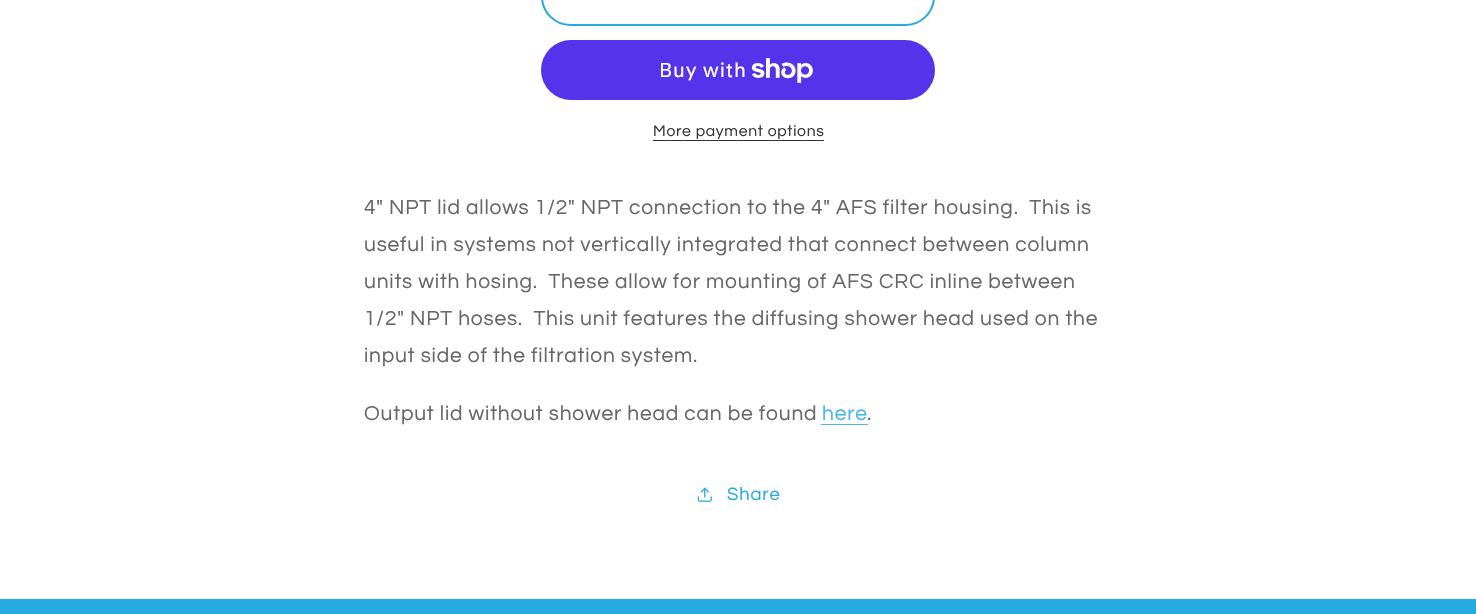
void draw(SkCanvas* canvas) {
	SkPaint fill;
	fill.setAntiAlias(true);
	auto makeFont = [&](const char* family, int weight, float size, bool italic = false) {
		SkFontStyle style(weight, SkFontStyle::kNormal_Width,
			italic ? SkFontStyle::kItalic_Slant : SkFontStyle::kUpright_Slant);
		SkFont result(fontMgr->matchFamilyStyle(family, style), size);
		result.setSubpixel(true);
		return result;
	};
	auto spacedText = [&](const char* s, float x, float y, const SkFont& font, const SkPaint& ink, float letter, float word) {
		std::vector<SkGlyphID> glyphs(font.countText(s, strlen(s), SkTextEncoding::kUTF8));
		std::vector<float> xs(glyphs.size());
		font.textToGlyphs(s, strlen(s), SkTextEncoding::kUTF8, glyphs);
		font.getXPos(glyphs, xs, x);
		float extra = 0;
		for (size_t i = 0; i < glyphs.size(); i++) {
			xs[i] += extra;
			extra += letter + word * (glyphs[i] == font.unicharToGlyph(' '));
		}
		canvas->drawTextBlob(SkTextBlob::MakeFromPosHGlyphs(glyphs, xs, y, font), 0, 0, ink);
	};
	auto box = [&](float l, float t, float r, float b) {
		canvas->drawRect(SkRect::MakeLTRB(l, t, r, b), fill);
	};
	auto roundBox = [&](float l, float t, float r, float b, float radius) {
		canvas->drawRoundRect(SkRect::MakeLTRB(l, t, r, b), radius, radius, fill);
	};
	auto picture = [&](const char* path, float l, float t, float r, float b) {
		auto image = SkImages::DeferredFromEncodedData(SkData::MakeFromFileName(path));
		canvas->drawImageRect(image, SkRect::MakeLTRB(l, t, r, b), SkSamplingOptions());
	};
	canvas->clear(0xFFFFFFFF);
	fill.setStyle(SkPaint::kStroke_Style);
	fill.setStrokeWidth(2);
	fill.setColor(0xFF25AAE1);
	canvas->drawRoundRect(SkRect::MakeLTRB(542, -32, 934, 25), 29.5f, 29.5f, fill);
	fill.setStyle(SkPaint::kFill_Style);
	fill.setColor(0xFF5433EB);
	roundBox(541, 40, 935, 100, 30);
	picture("image0.png", 751, 58, 813, 83);
	fill.setColor(0xFF333333);
	box(653, 140, 824, 141);
	fill.setColor(0xFF46B7E6);
	box(821, 424, 868, 425);
	picture("image1.png", 697, 487, 712, 502);
	fill.setColor(0xFF25AAE1);
	box(0, 599, 1476, 614);
	auto font1 = makeFont("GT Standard", 400, 20);
	fill.setColor(0xFFFFFFFF);
	spacedText("Buy with", 659, 77, font1, fill, 0.8f, 0);
	auto font2 = makeFont("Questrial", 400, 15.75f);
	fill.setColor(0xFF333333);
	spacedText("More payment options", 653, 136, font2, fill, 0.7f, 0);
	auto font3 = makeFont("Questrial", 400, 21);
	fill.setColor(0xFF666666);
	spacedText("4\" NPT lid allows 1/2\" NPT connection to the 4\" AFS filter housing.  This is", 364, 214, font3, fill, 0.8f, 0);
	spacedText("useful in systems not vertically integrated that connect between column", 364, 251, font3, fill, 0.8f, 0);
	spacedText("units with hosing.  These allow for mounting of AFS CRC inline between", 364, 288, font3, fill, 0.8f, 0);
	spacedText("1/2\" NPT hoses.  This unit features the diffusing shower head used on the", 364, 325, font3, fill, 0.8f, 0);
	spacedText("input side of the filtration system.", 364, 362, font3, fill, 0.8f, 0);
	spacedText("Output lid without shower head can be found", 364, 420, font3, fill, 0.8f, 0);
	fill.setColor(0xFF46B7E6);
	spacedText("here", 822, 420, font3, fill, 0.8f, 0);
	fill.setColor(0xFF666666);
	spacedText(".", 867, 420, font3, fill, 0.8f, 0);
	auto font4 = makeFont("Questrial", 400, 18.5f);
	fill.setColor(0xFF25AAE1);
	spacedText("Share", 727, 500, font4, fill, 0.8f, 0);
}
